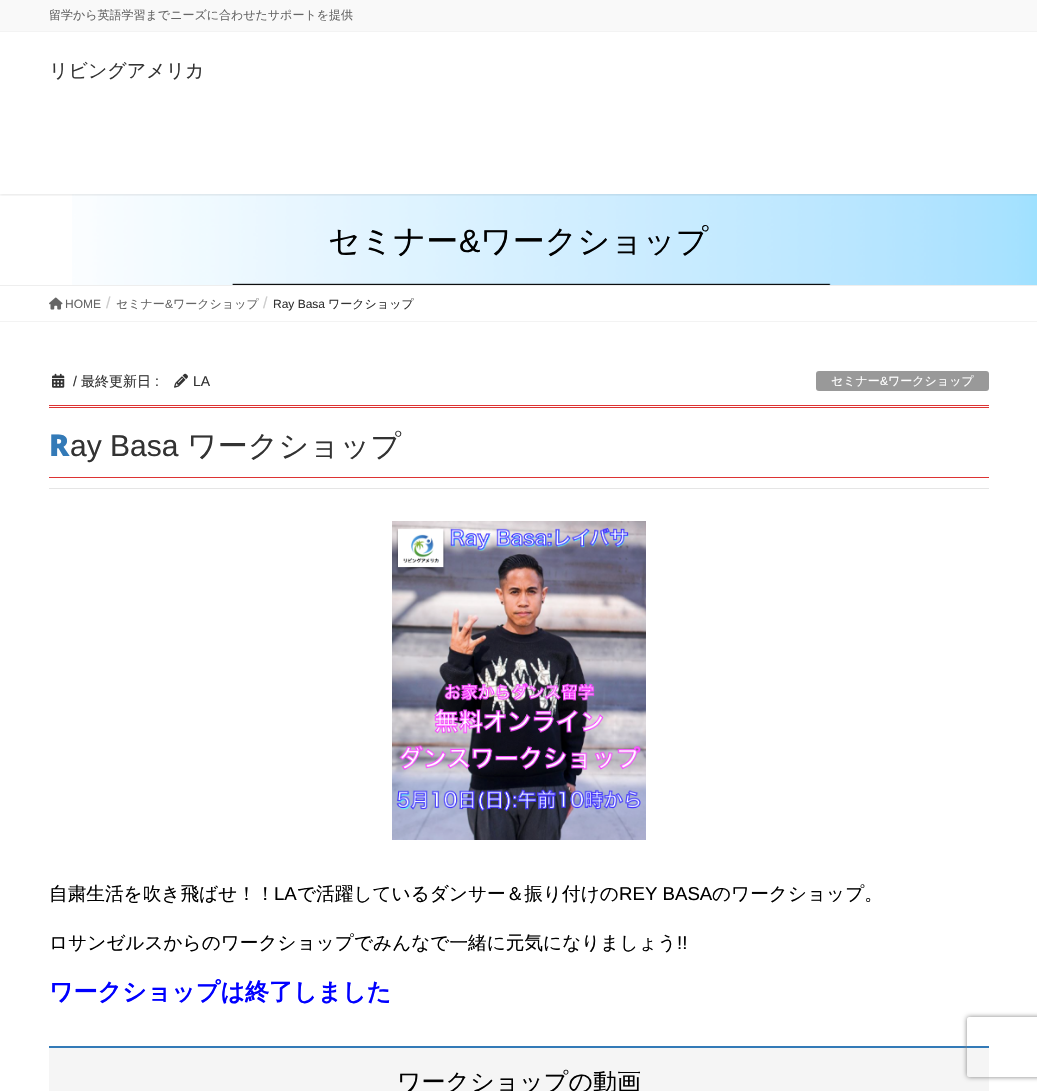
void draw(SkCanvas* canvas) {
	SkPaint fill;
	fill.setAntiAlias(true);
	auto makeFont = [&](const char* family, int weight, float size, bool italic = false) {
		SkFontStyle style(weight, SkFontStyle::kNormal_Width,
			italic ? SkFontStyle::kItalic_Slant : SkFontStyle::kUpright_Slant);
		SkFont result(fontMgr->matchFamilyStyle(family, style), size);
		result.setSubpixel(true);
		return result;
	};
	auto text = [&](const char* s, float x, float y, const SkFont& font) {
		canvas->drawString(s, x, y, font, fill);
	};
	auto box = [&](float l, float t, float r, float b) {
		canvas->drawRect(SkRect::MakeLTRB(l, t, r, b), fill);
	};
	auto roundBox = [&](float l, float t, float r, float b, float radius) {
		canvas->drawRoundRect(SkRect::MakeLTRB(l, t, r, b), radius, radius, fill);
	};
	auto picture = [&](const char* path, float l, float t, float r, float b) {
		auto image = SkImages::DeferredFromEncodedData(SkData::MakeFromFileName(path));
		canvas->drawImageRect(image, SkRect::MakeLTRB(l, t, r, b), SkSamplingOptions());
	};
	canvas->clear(0xFFFFFFFF);
	picture("image0.png", 72, 194, 1037, 285);
	canvas->save();
	canvas->clipRect(SkRect::MakeLTRB(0, 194, 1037, 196));
	fill.setColor(0x1A000000);
	fill.setMaskFilter(SkMaskFilter::MakeBlur(kNormal_SkBlurStyle, 1.5f));
	canvas->drawRect(SkRect::MakeLTRB(0, 1, 1037, 195), fill);
	fill.setMaskFilter(nullptr);
	canvas->restore();
	fill.setColor(0xFFF9F9F9);
	box(0, 0, 1037, 31);
	fill.setColor(0xFFF3F3F3);
	box(0, 31, 1037, 32);
	fill.setColor(0xFFEEEEEE);
	box(0, 285, 1037, 286);
	fill.setColor(0xFFF3F3F3);
	box(0, 321, 1037, 322);
	picture("image1.png", 49, 297, 63, 310);
	fill.setColor(0xFFE5E5E5);
	box(49, 488, 989, 489);
	picture("image2.png", 52, 373, 65, 388);
	picture("image3.png", 174, 373, 188, 388);
	fill.setColor(0xFF999999);
	roundBox(816, 371, 989, 391, 3);
	fill.setColor(0xFFDD3333);
	box(49, 405, 989, 406);
	box(49, 407, 989, 408);
	box(49, 477, 989, 478);
	picture("image4.png", 392, 521, 646, 840);
	fill.setColor(0xFFF5F5F5);
	box(49, 1048, 989, 1091);
	fill.setColor(0xFF337AB7);
	box(49, 1046, 989, 1048);
	canvas->save();
	canvas->clipPath(SkPathBuilder(SkPathFillType::kEvenOdd).moveTo(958, 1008).lineTo(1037, 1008).lineTo(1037, 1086).lineTo(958, 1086).close().moveTo(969, 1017).lineTo(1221, 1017).cubicTo(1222, 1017, 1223, 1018, 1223, 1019).lineTo(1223, 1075).cubicTo(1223, 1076, 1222, 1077, 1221, 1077).lineTo(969, 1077).cubicTo(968, 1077, 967, 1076, 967, 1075).lineTo(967, 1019).cubicTo(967, 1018, 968, 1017, 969, 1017).close().detach(), true);
	fill.setColor(0xFF808080);
	fill.setMaskFilter(SkMaskFilter::MakeBlur(kNormal_SkBlurStyle, 2.5f));
	canvas->drawRoundRect(SkRect::MakeLTRB(967, 1017, 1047, 1077), 2, 2, fill);
	fill.setMaskFilter(nullptr);
	canvas->restore();
	auto font1 = makeFont("WenQuanYi Zen Hei", 500, 12);
	fill.setColor(0xFF666666);
	text("留学から英語学習までニーズに合わせたサポートを提供", 49, 19, font1);
	auto font2 = makeFont("WenQuanYi Zen Hei", 500, 19);
	fill.setColor(0xFF333333);
	text("リビングアメリカ", 49, 77, font2);
	auto font3 = makeFont("WenQuanYi Zen Hei", 500, 32);
	fill.setColor(0xFF000000);
	text("セミナー", 328, 252, font3);
	auto font4 = makeFont("Liberation Sans", 400, 32);
	text("&", 459, 252, font4);
	text("ワークショップ", 480, 252, font3);
	auto font5 = makeFont("Liberation Sans", 400, 12);
	fill.setColor(0xFF666666);
	text("HOME", 65, 308, font5);
	auto font6 = makeFont("Liberation Sans", 400, 16);
	fill.setColor(0xFFCCCCCC);
	text("/", 106, 308, font6);
	fill.setColor(0xFF666666);
	text("セミナー", 116, 308, font1);
	text("&", 165, 308, font5);
	text("ワークショップ", 173, 308, font1);
	fill.setColor(0xFFCCCCCC);
	text("/", 263, 308, font6);
	fill.setColor(0xFF333333);
	text("Ray Basa", 273, 308, font5);
	text("ワークショップ", 328, 308, font1);
	auto font7 = makeFont("Liberation Sans", 400, 14);
	text("/", 73, 386, font7);
	auto font8 = makeFont("WenQuanYi Zen Hei", 500, 14);
	text("最終更新日", 81, 386, font8);
	text(":", 155, 386, font7);
	text("LA", 193, 386, font7);
	fill.setColor(0xFFFFFFFF);
	text("セミナー", 831, 385, font1);
	text("&", 880, 385, font5);
	text("ワークショップ", 888, 385, font1);
	auto font9 = makeFont("Noto Sans", 900, 30);
	fill.setColor(0xFF337AB7);
	text("R", 49, 456, font9);
	auto font10 = makeFont("Liberation Sans", 400, 30);
	fill.setColor(0xFF333333);
	text("ay Basa", 70, 456, font10);
	auto font11 = makeFont("WenQuanYi Zen Hei", 500, 30);
	text("ワークショップ", 187, 456, font11);
	auto font12 = makeFont("WenQuanYi Zen Hei", 500, 18.65f);
	fill.setColor(0xFF000000);
	text("自粛生活を吹き飛ばせ！！", 49, 900, font12);
	auto font13 = makeFont("Liberation Sans", 400, 18.65f);
	text("LA", 274, 900, font13);
	text("で活躍しているダンサー＆振り付けの", 297, 900, font12);
	text("REY BASA", 619, 900, font13);
	text("のワークショップ。", 712, 900, font12);
	text("ロサンゼルスからのワークショップでみんなで一緒に元気になりましょう", 49, 949, font12);
	text("!!", 677, 949, font13);
	auto font14 = makeFont("WenQuanYi Zen Hei", 700, 24);
	fill.setColor(0xFF0000FF);
	text("ワークショップは終了しました", 49, 1000, font14);
	auto font15 = makeFont("WenQuanYi Zen Hei", 500, 24);
	fill.setColor(0xFF000000);
	text("ワークショップの動画", 397, 1090, font15);
}
